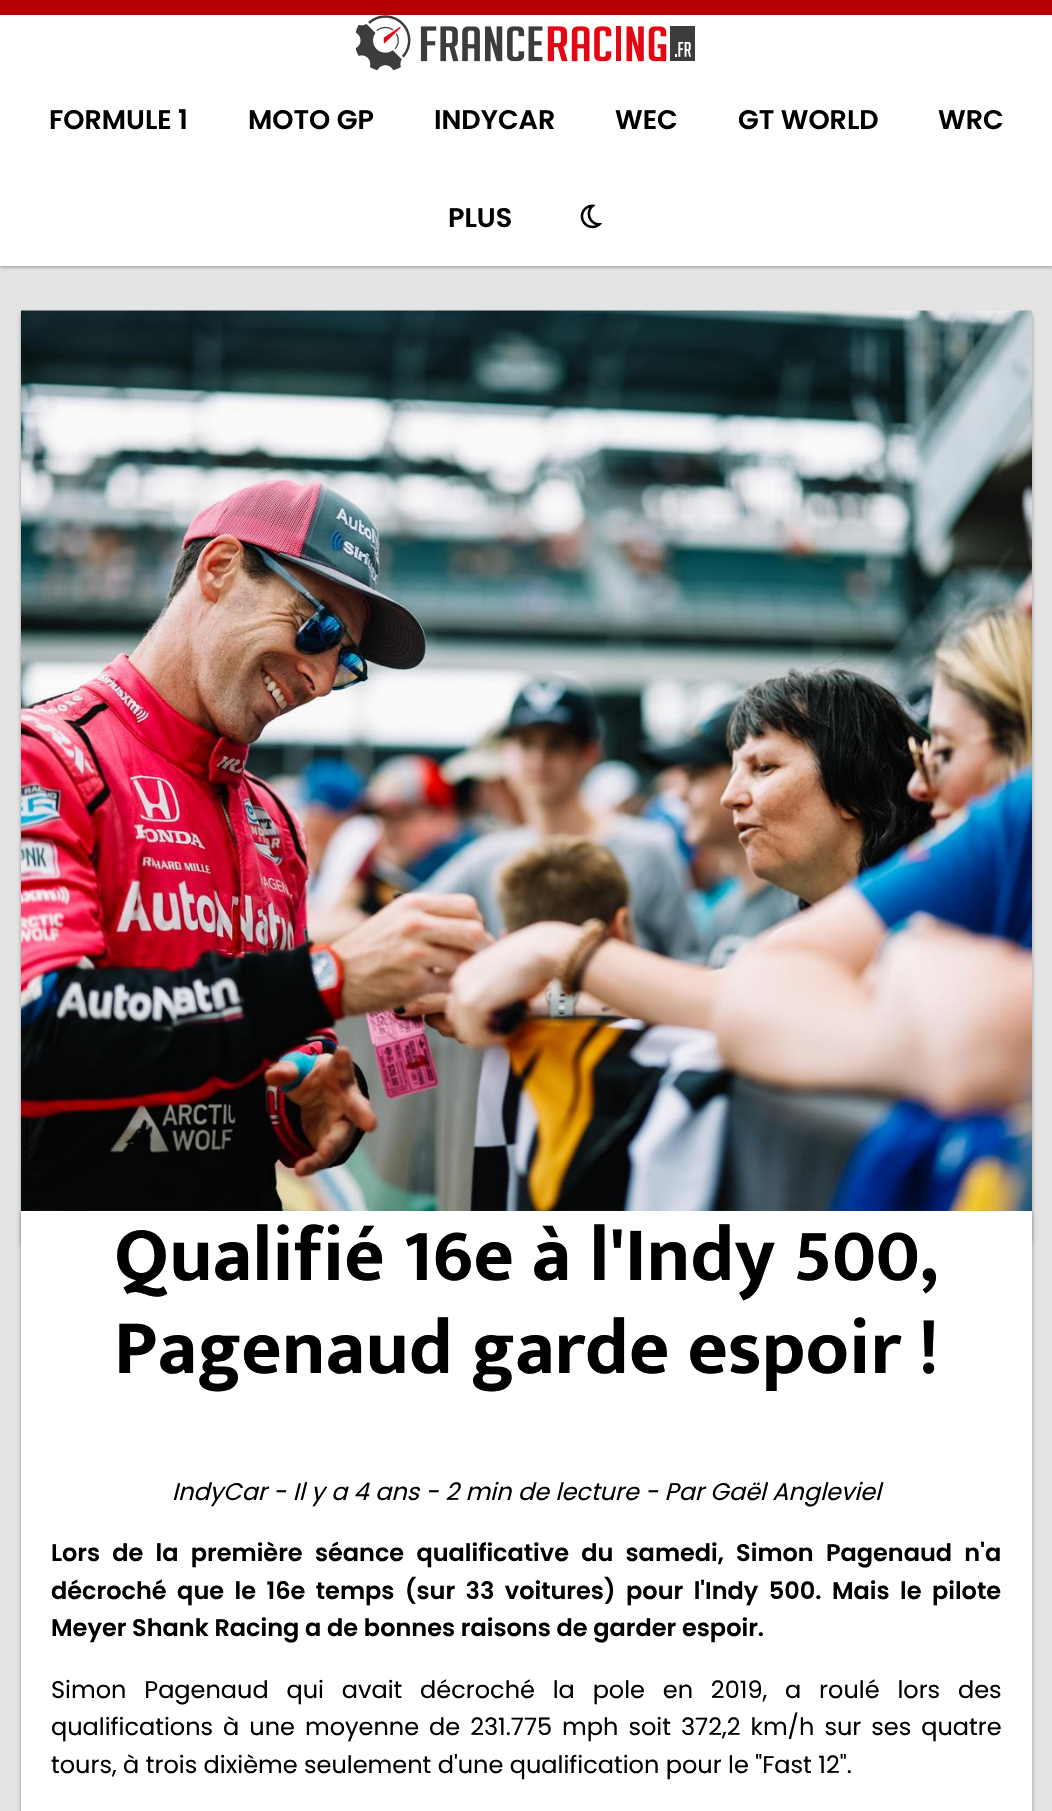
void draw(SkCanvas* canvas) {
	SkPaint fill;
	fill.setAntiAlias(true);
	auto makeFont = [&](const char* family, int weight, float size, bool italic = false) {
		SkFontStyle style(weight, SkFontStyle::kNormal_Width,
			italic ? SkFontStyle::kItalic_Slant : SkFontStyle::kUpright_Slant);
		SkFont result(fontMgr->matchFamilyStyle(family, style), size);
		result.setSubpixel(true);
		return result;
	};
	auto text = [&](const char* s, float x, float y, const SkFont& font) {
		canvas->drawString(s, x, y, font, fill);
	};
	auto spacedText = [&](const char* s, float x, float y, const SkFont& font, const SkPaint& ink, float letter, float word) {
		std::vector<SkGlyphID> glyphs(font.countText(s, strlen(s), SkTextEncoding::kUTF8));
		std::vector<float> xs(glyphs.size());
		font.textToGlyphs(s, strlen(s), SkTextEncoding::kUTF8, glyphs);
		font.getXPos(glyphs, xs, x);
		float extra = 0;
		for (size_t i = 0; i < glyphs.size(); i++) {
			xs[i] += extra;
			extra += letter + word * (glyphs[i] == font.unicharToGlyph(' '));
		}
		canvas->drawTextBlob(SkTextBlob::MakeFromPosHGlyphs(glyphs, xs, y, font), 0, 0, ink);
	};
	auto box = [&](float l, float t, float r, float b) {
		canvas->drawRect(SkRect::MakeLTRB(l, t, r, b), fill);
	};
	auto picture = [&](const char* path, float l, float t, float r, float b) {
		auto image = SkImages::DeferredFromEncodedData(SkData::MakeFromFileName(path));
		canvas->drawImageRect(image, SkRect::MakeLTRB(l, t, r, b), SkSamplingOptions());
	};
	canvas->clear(0xFFE4E4E4);
	fill.setColor(0xFF949494);
	fill.setMaskFilter(SkMaskFilter::MakeBlur(kNormal_SkBlurStyle, 2));
	canvas->drawRect(SkRect::MakeLTRB(0, 2, 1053, 267), fill);
	fill.setMaskFilter(nullptr);
	fill.setColor(0xFFFFFFFF);
	box(0, 15, 1052, 266);
	fill.setColor(0xFFB20000);
	box(0, 0, 1052, 15);
	picture("image0.png", 356, 15, 695, 71);
	picture("image1.png", 580, 204, 602, 229);
	fill.setColor(0xFF949494);
	fill.setMaskFilter(SkMaskFilter::MakeBlur(kNormal_SkBlurStyle, 2));
	canvas->drawRect(SkRect::MakeLTRB(21, 314, 1032, 1244), fill);
	fill.setMaskFilter(nullptr);
	picture("image2.png", 21, 310, 1032, 1211);
	fill.setMaskFilter(SkMaskFilter::MakeBlur(kNormal_SkBlurStyle, 2));
	canvas->drawRect(SkRect::MakeLTRB(21, 1214, 1032, 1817), fill);
	fill.setMaskFilter(nullptr);
	fill.setColor(0xFFFFFFFF);
	box(21, 1211, 1032, 1811);
	auto font1 = makeFont("Poppins", 600, 27);
	fill.setColor(0xFF000000);
	text("FORMULE 1", 49, 129, font1);
	text("MOTO GP", 248, 129, font1);
	text("INDYCAR", 434, 129, font1);
	text("WEC", 615, 129, font1);
	text("GT WORLD", 738, 129, font1);
	text("WRC", 938, 129, font1);
	text("PLUS", 448, 227, font1);
	auto font2 = makeFont("Mukta Mahee", 700, 78);
	text("Qualifié 16e à l'Indy 500,", 114, 1280, font2);
	text("Pagenaud garde espoir !", 114, 1373, font2);
	auto font3 = makeFont("Poppins", 400, 24, true);
	text("IndyCar - Il y a 4 ans - 2 min de lecture - Par Gaël Angleviel", 172, 1500, font3);
	auto font4 = makeFont("Poppins", 600, 24);
	spacedText("Lors de la première séance qualificative du samedi, Simon Pagenaud n'a", 51, 1561, font4, fill, 0, 6.5f);
	spacedText("décroché que le 16e temps (sur 33 voitures) pour l'Indy 500. Mais le pilote", 51, 1599, font4, fill, 0, 4.75f);
	text("Meyer Shank Racing a de bonnes raisons de garder espoir.", 51, 1636, font4);
	auto font5 = makeFont("Poppins", 400, 24);
	spacedText("Simon Pagenaud qui avait décroché la pole en 2019, a roulé lors des", 51, 1698, font5, fill, 0, 11.4f);
	spacedText("qualifications à une moyenne de 231.775 mph soit 372,2 km/h sur ses quatre", 51, 1735, font5, fill, 0, 3.6f);
	text("tours, à trois dixième seulement d'une qualification pour le \"Fast 12\".", 51, 1773, font5);
}
